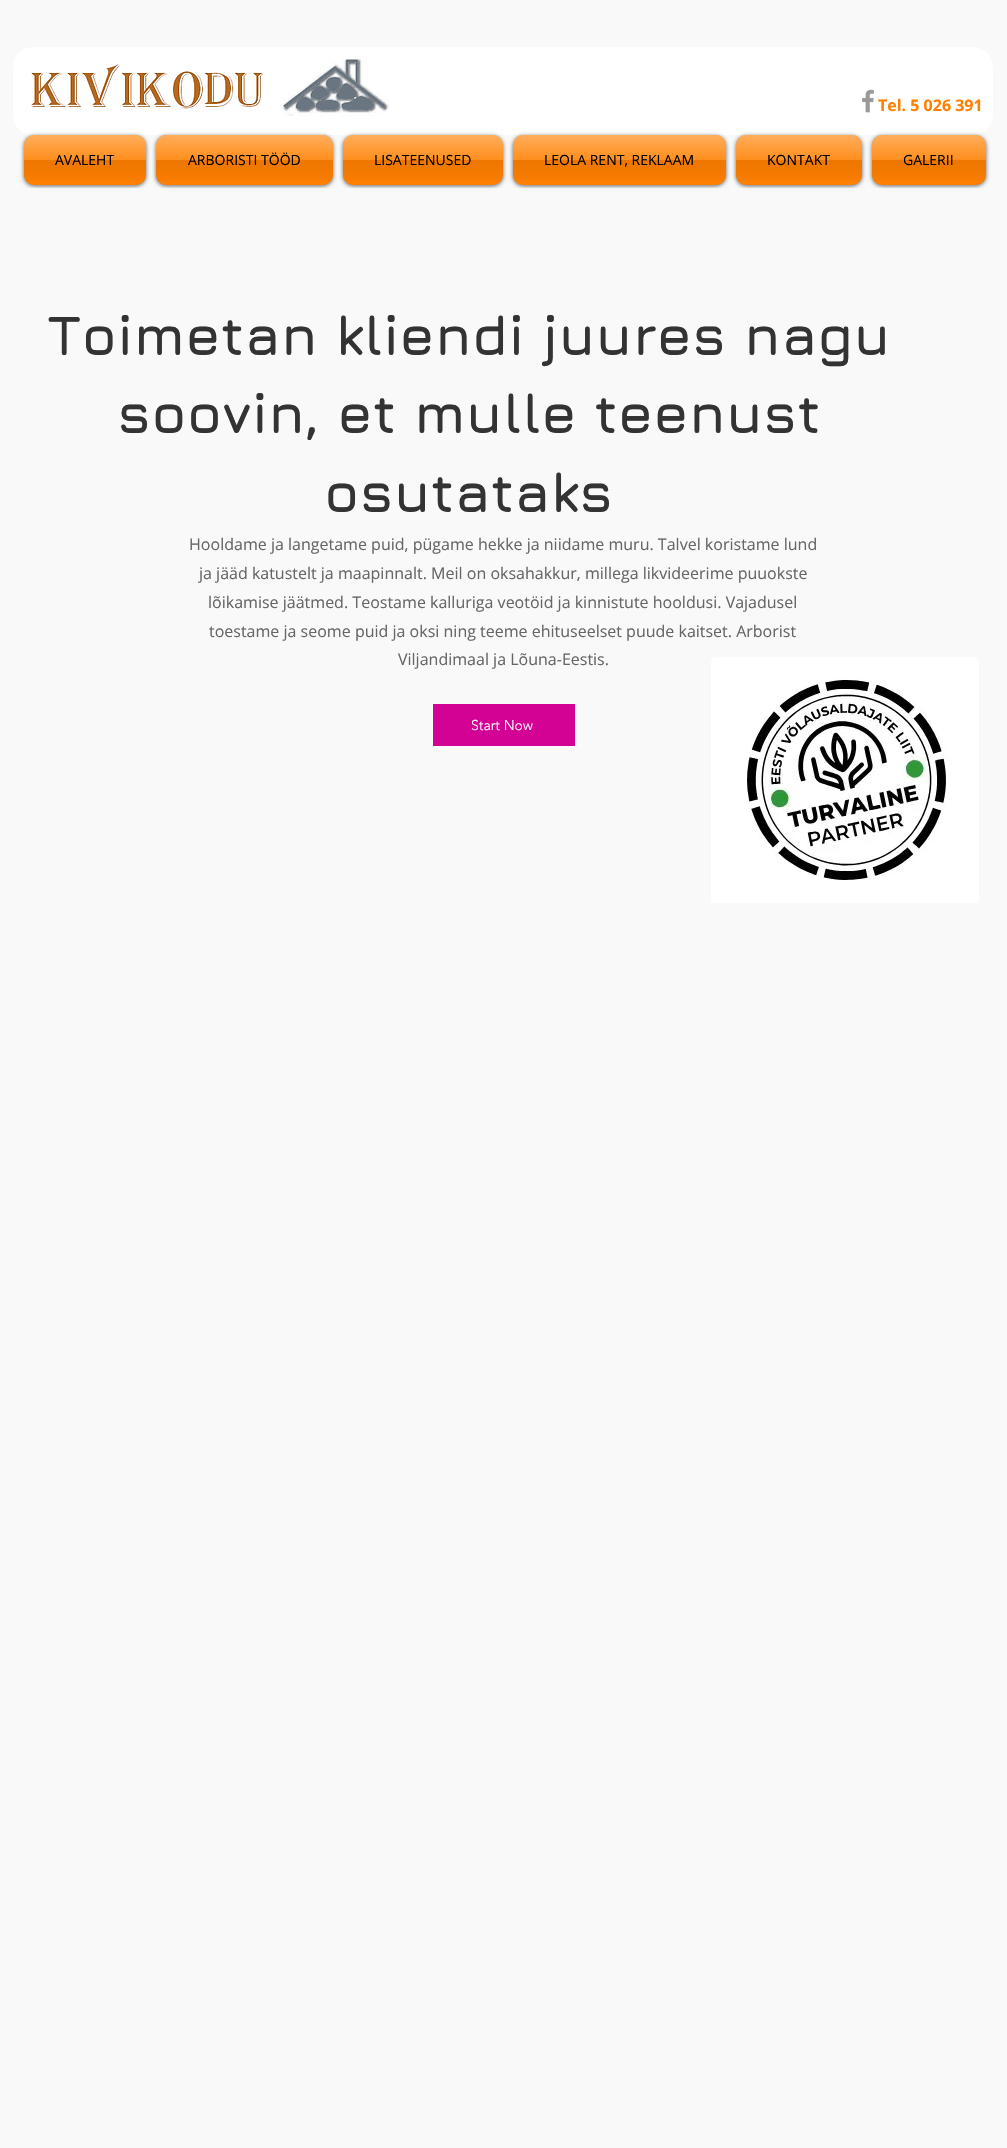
void draw(SkCanvas* canvas) {
	SkPaint fill;
	fill.setAntiAlias(true);
	auto makeFont = [&](const char* family, int weight, float size, bool italic = false) {
		SkFontStyle style(weight, SkFontStyle::kNormal_Width,
			italic ? SkFontStyle::kItalic_Slant : SkFontStyle::kUpright_Slant);
		SkFont result(fontMgr->matchFamilyStyle(family, style), size);
		result.setSubpixel(true);
		return result;
	};
	auto text = [&](const char* s, float x, float y, const SkFont& font) {
		canvas->drawString(s, x, y, font, fill);
	};
	auto box = [&](float l, float t, float r, float b) {
		canvas->drawRect(SkRect::MakeLTRB(l, t, r, b), fill);
	};
	auto roundBox = [&](float l, float t, float r, float b, float radius) {
		canvas->drawRoundRect(SkRect::MakeLTRB(l, t, r, b), radius, radius, fill);
	};
	auto picture = [&](const char* path, float l, float t, float r, float b) {
		auto image = SkImages::DeferredFromEncodedData(SkData::MakeFromFileName(path));
		canvas->drawImageRect(image, SkRect::MakeLTRB(l, t, r, b), SkSamplingOptions());
	};
	canvas->clear(0xFFF9F9F9);
	fill.setColor(0xFFFFFFFF);
	roundBox(13, 47, 993, 135, 20);
	picture("image0.png", 31, 63, 263, 109);
	picture("image1.png", 281, 58, 389, 116);
	picture("image2.png", 862, 89, 874, 113);
	fill.setColor(0x99000000);
	fill.setMaskFilter(SkMaskFilter::MakeBlur(kNormal_SkBlurStyle, 2));
	canvas->drawRoundRect(SkRect::MakeLTRB(24, 136, 146, 186), 10, 10, fill);
	fill.setMaskFilter(nullptr);
	fill.setColor(0xFFFF8000);
	roundBox(24, 135, 146, 185, 10);
	picture("image3.png", 24, 135, 146, 181);
	fill.setColor(0x99000000);
	fill.setMaskFilter(SkMaskFilter::MakeBlur(kNormal_SkBlurStyle, 2));
	canvas->drawRoundRect(SkRect::MakeLTRB(156, 136, 333, 186), 10, 10, fill);
	fill.setMaskFilter(nullptr);
	fill.setColor(0xFFFF8000);
	roundBox(156, 135, 333, 185, 10);
	picture("image4.png", 156, 135, 333, 181);
	fill.setColor(0x99000000);
	fill.setMaskFilter(SkMaskFilter::MakeBlur(kNormal_SkBlurStyle, 2));
	canvas->drawRoundRect(SkRect::MakeLTRB(343, 136, 503, 186), 10, 10, fill);
	fill.setMaskFilter(nullptr);
	fill.setColor(0xFFFF8000);
	roundBox(343, 135, 503, 185, 10);
	picture("image5.png", 343, 135, 503, 181);
	fill.setColor(0x99000000);
	fill.setMaskFilter(SkMaskFilter::MakeBlur(kNormal_SkBlurStyle, 2));
	canvas->drawRoundRect(SkRect::MakeLTRB(513, 136, 726, 186), 10, 10, fill);
	fill.setMaskFilter(nullptr);
	fill.setColor(0xFFFF8000);
	roundBox(513, 135, 726, 185, 10);
	picture("image6.png", 513, 135, 726, 181);
	fill.setColor(0x99000000);
	fill.setMaskFilter(SkMaskFilter::MakeBlur(kNormal_SkBlurStyle, 2));
	canvas->drawRoundRect(SkRect::MakeLTRB(736, 136, 862, 186), 10, 10, fill);
	fill.setMaskFilter(nullptr);
	fill.setColor(0xFFFF8000);
	roundBox(736, 135, 862, 185, 10);
	picture("image7.png", 736, 135, 862, 181);
	fill.setColor(0x99000000);
	fill.setMaskFilter(SkMaskFilter::MakeBlur(kNormal_SkBlurStyle, 2));
	canvas->drawRoundRect(SkRect::MakeLTRB(872, 136, 986, 186), 10, 10, fill);
	fill.setMaskFilter(nullptr);
	fill.setColor(0xFFFF8000);
	roundBox(872, 135, 986, 185, 10);
	picture("image8.png", 872, 135, 986, 181);
	fill.setColor(0xCCF9F9F9);
	box(28, 188, 982, 190);
	fill.setColor(0xFFD30294);
	box(433, 704, 575, 746);
	picture("image9.png", 711, 657, 979, 903);
	auto font1 = makeFont("Open Sans", 700, 16);
	fill.setColor(0xFFFF8000);
	text("Tel. 5 026 391", 878, 111, font1);
	auto font2 = makeFont("Open Sans", 400, 14);
	fill.setColor(0xFF000000);
	text("AVALEHT", 55, 165, font2);
	text("ARBORISTI TÖÖD", 188, 165, font2);
	text("LISATEENUSED", 374, 165, font2);
	text("LEOLA RENT, REKLAAM", 544, 165, font2);
	text("KONTAKT", 767, 165, font2);
	text("GALERII", 903, 165, font2);
	auto font3 = makeFont("Jura", 700, 56);
	fill.setColor(0xFF333333);
	text("Toimetan kliendi juures nagu", 47, 355, font3);
	text("soovin, et mulle teenust", 117, 433, font3);
	text("osutataks", 324, 512, font3);
	auto font4 = makeFont("Open Sans", 400, 16);
	fill.setColor(0xFF666666);
	text("Hooldame ja langetame puid, pügame hekke ja niidame muru. Talvel koristame lund", 189, 550, font4);
	text("ja jääd katustelt ja maapinnalt. Meil on oksahakkur, millega likvideerime puuokste", 199, 579, font4);
	text("lõikamise jäätmed. Teostame kalluriga veotöid ja kinnistute hooldusi. Vajadusel", 208, 608, font4);
	text("toestame ja seome puid ja oksi ning teeme ehituseelset puude kaitset. Arborist", 209, 637, font4);
	text("Viljandimaal ja Lõuna-Eestis.", 398, 665, font4);
	auto font5 = makeFont("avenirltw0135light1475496", 300, 14);
	fill.setColor(0xFFFFFFFF);
	text("Start Now", 471, 730, font5);
}
